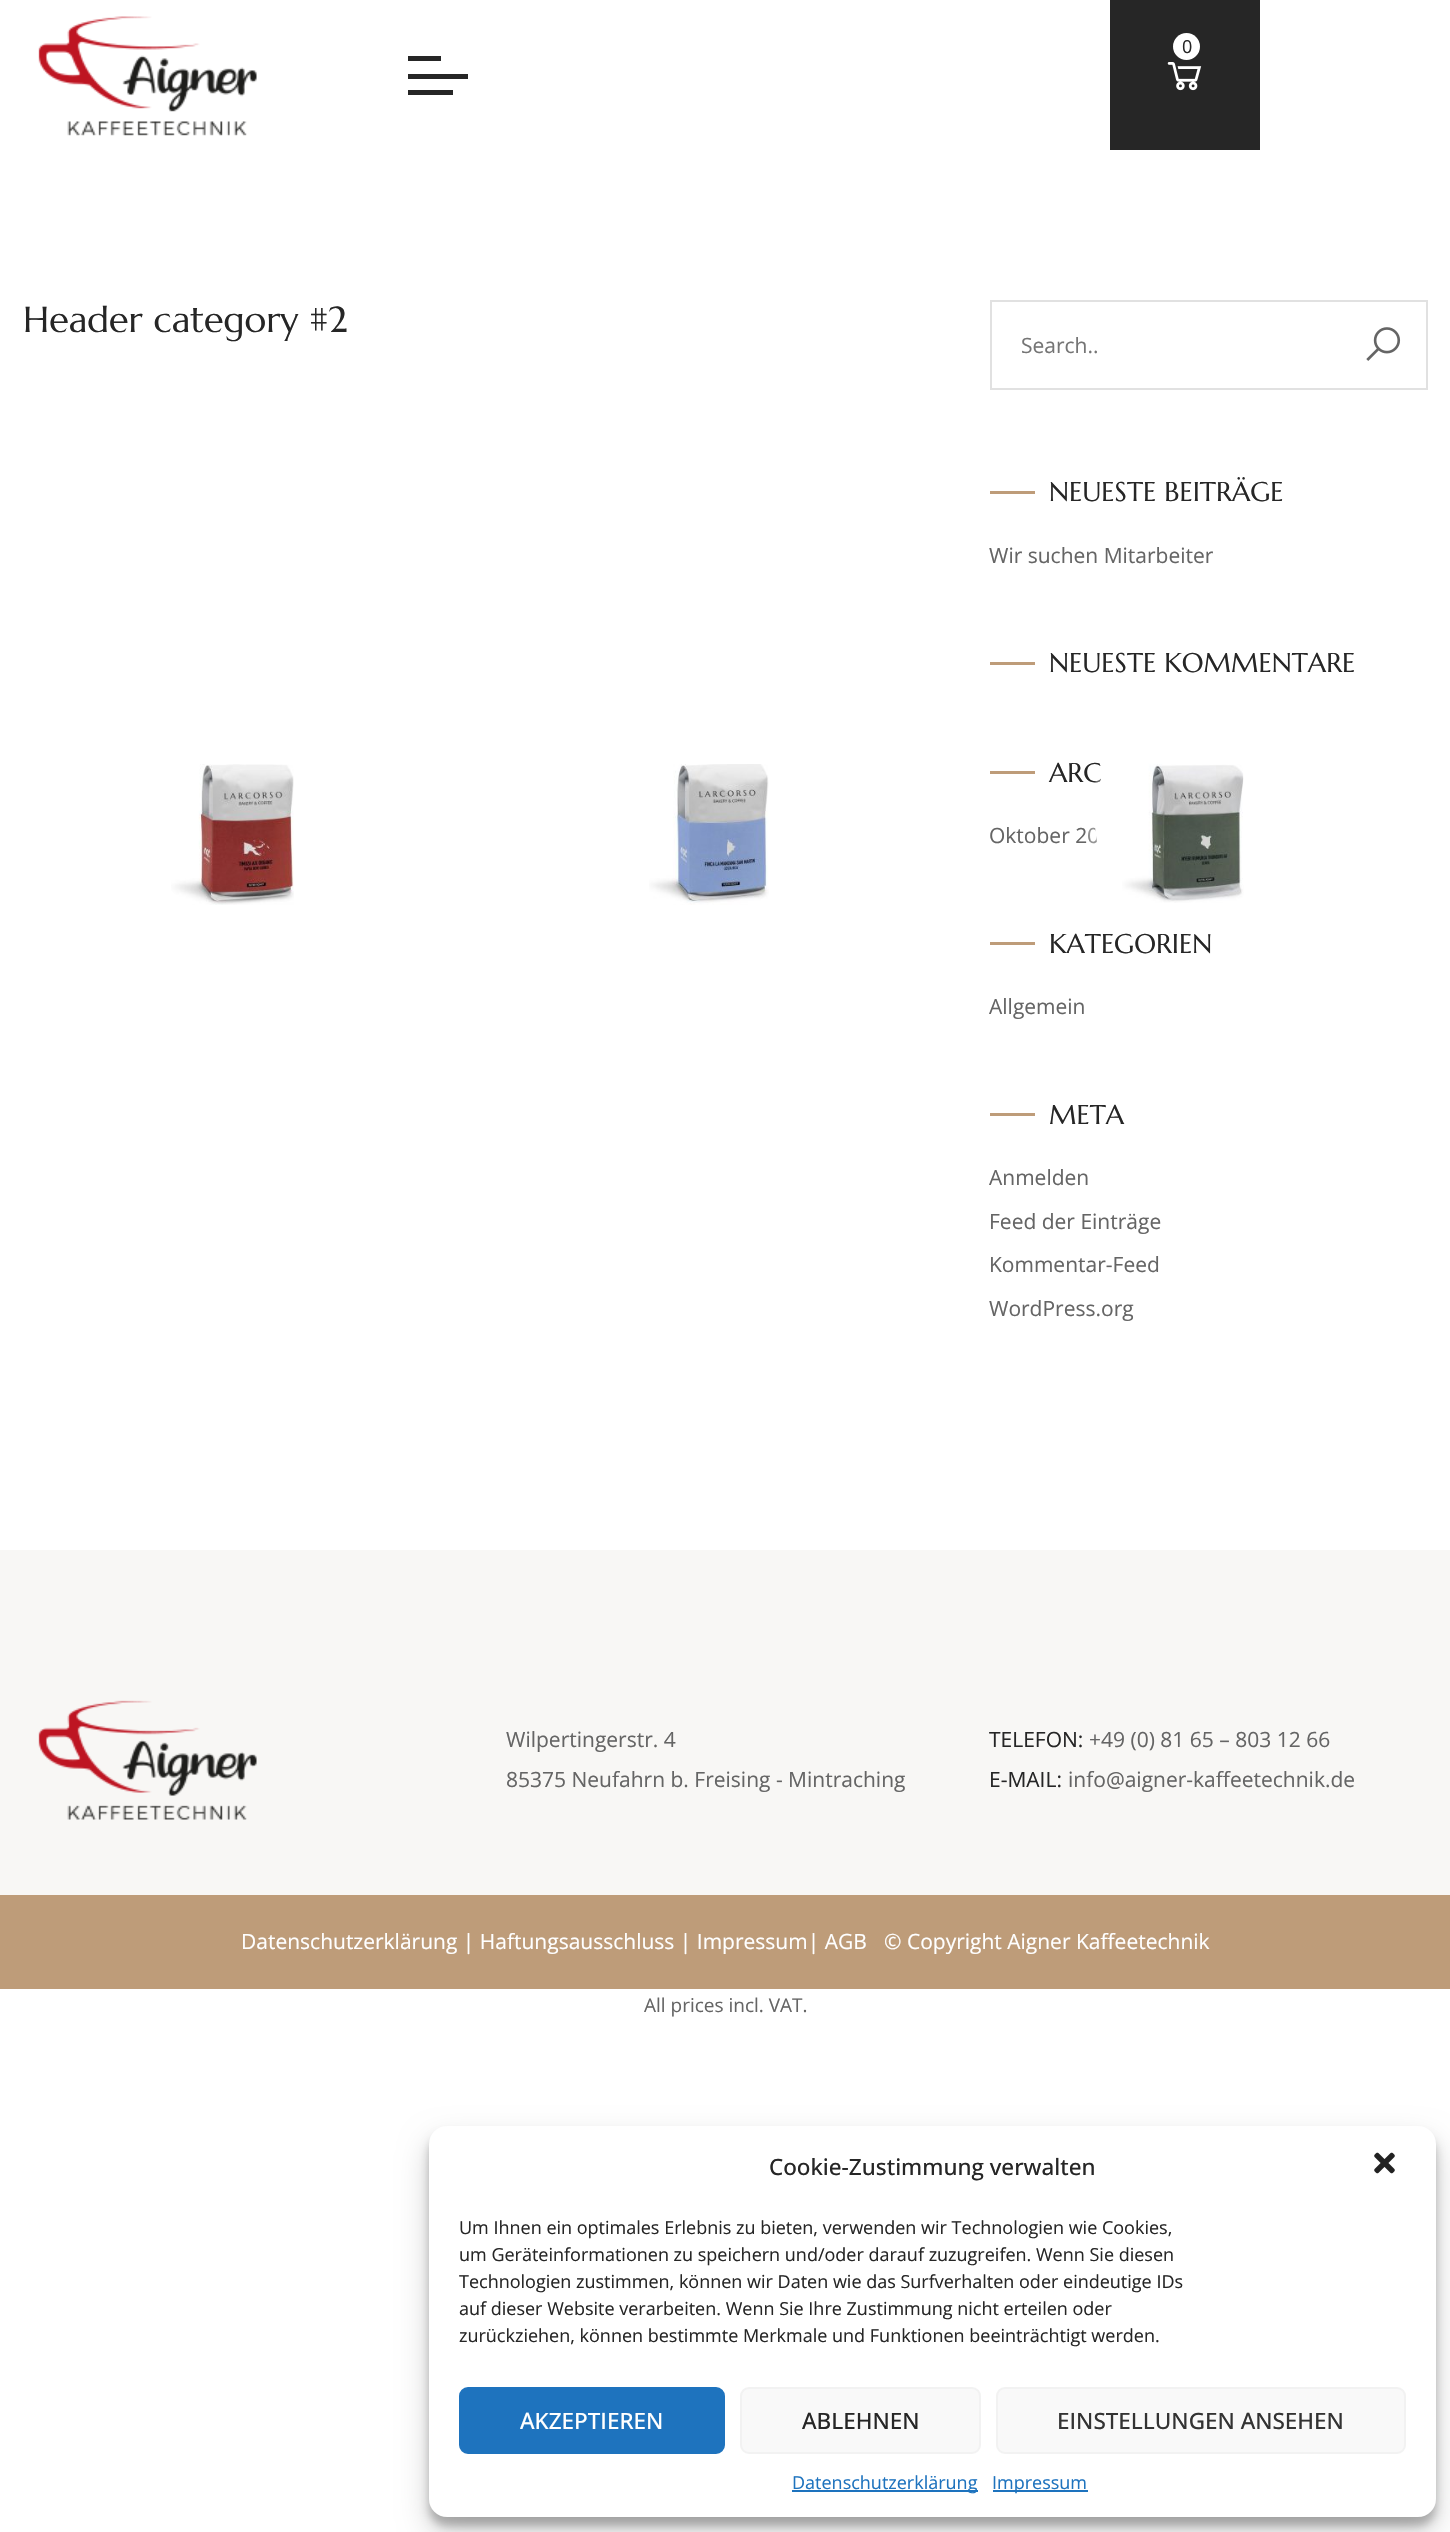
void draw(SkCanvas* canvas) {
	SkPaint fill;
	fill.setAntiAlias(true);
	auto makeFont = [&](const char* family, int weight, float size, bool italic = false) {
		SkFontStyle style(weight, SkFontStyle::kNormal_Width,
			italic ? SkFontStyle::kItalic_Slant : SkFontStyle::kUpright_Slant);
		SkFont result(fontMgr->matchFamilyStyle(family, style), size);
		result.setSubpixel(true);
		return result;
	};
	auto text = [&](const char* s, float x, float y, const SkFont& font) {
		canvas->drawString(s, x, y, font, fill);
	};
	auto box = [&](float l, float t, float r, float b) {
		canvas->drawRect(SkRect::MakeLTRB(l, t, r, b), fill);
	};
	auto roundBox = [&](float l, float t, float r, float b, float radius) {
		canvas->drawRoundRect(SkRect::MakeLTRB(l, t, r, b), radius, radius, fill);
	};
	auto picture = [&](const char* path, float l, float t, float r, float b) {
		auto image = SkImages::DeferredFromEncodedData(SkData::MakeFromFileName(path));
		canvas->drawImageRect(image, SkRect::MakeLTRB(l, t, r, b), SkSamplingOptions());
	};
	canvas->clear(0xFFFFFFFF);
	picture("image0.png", 38, 16, 257, 136);
	fill.setColor(0xFF262626);
	box(1110, 0, 1260, 150);
	fill.setColor(0xFFFFFFFF);
	canvas->drawCircle(1186.5f, 46.5f, 13.5f, fill);
	picture("image1.png", 1167, 62, 1202, 91);
	fill.setColor(0xFF262626);
	box(408, 56, 441, 61);
	box(408, 90, 453, 95);
	box(408, 74, 468, 79);
	picture("image2.png", 171, 764, 294, 905);
	picture("image3.png", 649, 764, 769, 905);
	fill.setStyle(SkPaint::kStroke_Style);
	fill.setStrokeWidth(2);
	fill.setColor(0xFFE1E1E1);
	canvas->drawRect(SkRect::MakeLTRB(991, 301, 1427, 389), fill);
	picture("image5.png", 1366, 327, 1401, 361);
	fill.setStyle(SkPaint::kFill_Style);
	fill.setColor(0xFFBE9C79);
	box(990, 491, 1035, 494);
	box(990, 662, 1035, 665);
	box(990, 771, 1035, 774);
	box(990, 942, 1035, 945);
	box(990, 1113, 1035, 1116);
	fill.setColor(0xFFF8F7F5);
	box(0, 1550, 1450, 1895);
	picture("image6.png", 38, 1700, 257, 1820);
	fill.setColor(0xFFBE9C79);
	box(0, 1895, 1450, 1989);
	fill.setColor(0x3B000000);
	fill.setMaskFilter(SkMaskFilter::MakeBlur(kNormal_SkBlurStyle, 4.5f));
	canvas->drawRoundRect(SkRect::MakeLTRB(429, 2135, 1436, 2526), 18, 18, fill);
	fill.setMaskFilter(nullptr);
	fill.setColor(0x30000000);
	fill.setMaskFilter(SkMaskFilter::MakeBlur(kNormal_SkBlurStyle, 15));
	canvas->drawRoundRect(SkRect::MakeLTRB(429, 2141, 1436, 2532), 18, 18, fill);
	fill.setMaskFilter(nullptr);
	fill.setColor(0xFFFFFFFF);
	roundBox(429, 2126, 1436, 2517, 18);
	picture("image7.png", 1374, 2152, 1395, 2174);
	fill.setColor(0xFF1E73BE);
	canvas->drawRoundRect(SkRect::MakeLTRB(460, 2388, 724, 2453), 8, 8, fill);
	fill.setStyle(SkPaint::kStroke_Style);
	canvas->drawRoundRect(SkRect::MakeLTRB(460, 2388, 724, 2453), 8, 8, fill);
	fill.setStyle(SkPaint::kFill_Style);
	fill.setColor(0xFFF9F9F9);
	canvas->drawRoundRect(SkRect::MakeLTRB(741, 2388, 980, 2453), 8, 8, fill);
	fill.setStyle(SkPaint::kStroke_Style);
	fill.setColor(0xFFF2F2F2);
	canvas->drawRoundRect(SkRect::MakeLTRB(741, 2388, 980, 2453), 8, 8, fill);
	fill.setStyle(SkPaint::kFill_Style);
	fill.setColor(0xFFF9F9F9);
	canvas->drawRoundRect(SkRect::MakeLTRB(997, 2388, 1405, 2453), 8, 8, fill);
	fill.setStyle(SkPaint::kStroke_Style);
	fill.setColor(0xFFF2F2F2);
	canvas->drawRoundRect(SkRect::MakeLTRB(997, 2388, 1405, 2453), 8, 8, fill);
	fill.setStyle(SkPaint::kFill_Style);
	fill.setColor(0xFF1E73BE);
	box(792, 2490, 978, 2492);
	box(993, 2490, 1088, 2492);
	auto font1 = makeFont("Open Sans", 400, 18);
	fill.setColor(0xFF262626);
	text("0", 1182, 53, font1);
	auto font2 = makeFont("Marcellus", 400, 36);
	text("Header category #2", 23, 332, font2);
	auto font3 = makeFont("Open Sans", 400, 21);
	fill.setColor(0xFF757575);
	text("Search..", 1021, 353, font3);
	auto font4 = makeFont("Marcellus", 400, 27);
	fill.setColor(0xFF262626);
	text("NEUESTE BEITRÄGE", 1049, 501, font4);
	fill.setColor(0xFF656565);
	text("Wir suchen Mitarbeiter", 989, 563, font3);
	fill.setColor(0xFF262626);
	text("NEUESTE KOMMENTARE", 1049, 672, font4);
	text("ARC", 1049, 782, font4);
	fill.setColor(0xFF656565);
	text("Oktober 20", 989, 843, font3);
	fill.setColor(0xFF262626);
	text("KATEGORIEN", 1049, 953, font4);
	fill.setStyle(SkPaint::kStroke_Style);
	fill.setStrokeWidth(8);
	fill.setColor(0x4DFFFFFF);
	canvas->drawCircle(1200.5f, 822.5f, 108.5f, fill);
	picture("image4.png", 1095, 763, 1244, 903);
	fill.setStyle(SkPaint::kFill_Style);
	fill.setColor(0xFF656565);
	text("Allgemein", 989, 1014, font3);
	fill.setColor(0xFF262626);
	text("META", 1049, 1124, font4);
	fill.setColor(0xFF656565);
	text("Anmelden", 989, 1185, font3);
	text("Feed der Einträge", 989, 1229, font3);
	text("Kommentar-Feed", 989, 1272, font3);
	text("WordPress.org", 989, 1316, font3);
	text("Wilpertingerstr. 4", 506, 1747, font3);
	text("85375 Neufahrn b. Freising - Mintraching", 506, 1787, font3);
	fill.setColor(0xFF262626);
	text("TELEFON:", 989, 1747, font3);
	fill.setColor(0xFF656565);
	text("+49 (0) 81 65 – 803 12 66", 1089, 1747, font3);
	fill.setColor(0xFF262626);
	text("E-MAIL:", 989, 1787, font3);
	fill.setColor(0xFF656565);
	text("info@aigner-kaffeetechnik.de", 1068, 1787, font3);
	fill.setColor(0xFFFFFFFF);
	text("Datenschutzerklärung | Haftungsausschluss | Impressum| AGB", 241, 1949, font3);
	text("© Copyright Aigner Kaffeetechnik", 884, 1949, font3);
	auto font5 = makeFont("Open Sans", 400, 19);
	fill.setColor(0xFF656565);
	text("All prices incl. VAT.", 644, 2012, font5);
	auto font6 = makeFont("Open Sans", 500, 22.5f);
	fill.setColor(0xFF262626);
	text("Cookie-Zustimmung verwalten", 769, 2175, font6);
	text("Um Ihnen ein optimales Erlebnis zu bieten, verwenden wir Technologien wie Cookies,", 459, 2234, font1);
	text("um Geräteinformationen zu speichern und/oder darauf zuzugreifen. Wenn Sie diesen", 459, 2261, font1);
	text("Technologien zustimmen, können wir Daten wie das Surfverhalten oder eindeutige IDs", 459, 2288, font1);
	text("auf dieser Website verarbeiten. Wenn Sie Ihre Zustimmung nicht erteilen oder", 459, 2315, font1);
	text("zurückziehen, können bestimmte Merkmale und Funktionen beeinträchtigt werden.", 459, 2342, font1);
	fill.setColor(0xFFFFFFFF);
	text("AKZEPTIEREN", 520, 2429, font6);
	fill.setColor(0xFF262626);
	text("ABLEHNEN", 802, 2429, font6);
	fill.setColor(0xFF333333);
	text("EINSTELLUNGEN ANSEHEN", 1057, 2429, font6);
	fill.setColor(0xFF1E73BE);
	text("Datenschutzerklärung", 792, 2489, font1);
	text("Impressum", 992, 2489, font1);
}
